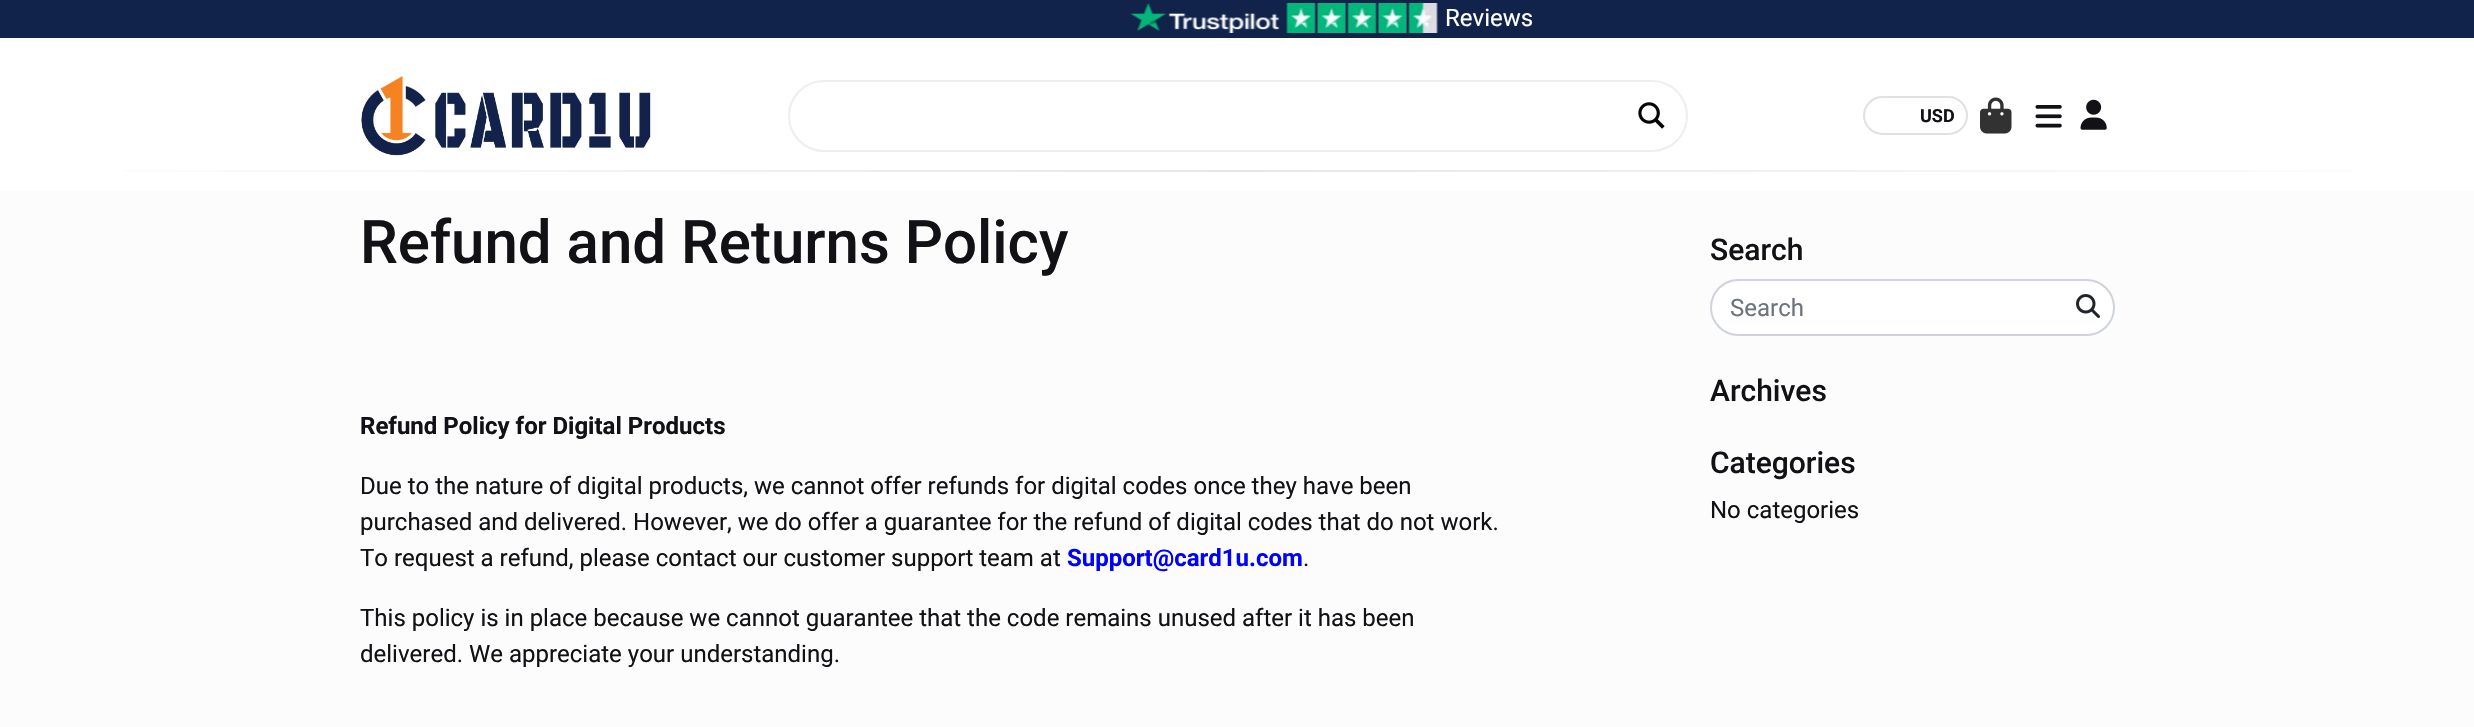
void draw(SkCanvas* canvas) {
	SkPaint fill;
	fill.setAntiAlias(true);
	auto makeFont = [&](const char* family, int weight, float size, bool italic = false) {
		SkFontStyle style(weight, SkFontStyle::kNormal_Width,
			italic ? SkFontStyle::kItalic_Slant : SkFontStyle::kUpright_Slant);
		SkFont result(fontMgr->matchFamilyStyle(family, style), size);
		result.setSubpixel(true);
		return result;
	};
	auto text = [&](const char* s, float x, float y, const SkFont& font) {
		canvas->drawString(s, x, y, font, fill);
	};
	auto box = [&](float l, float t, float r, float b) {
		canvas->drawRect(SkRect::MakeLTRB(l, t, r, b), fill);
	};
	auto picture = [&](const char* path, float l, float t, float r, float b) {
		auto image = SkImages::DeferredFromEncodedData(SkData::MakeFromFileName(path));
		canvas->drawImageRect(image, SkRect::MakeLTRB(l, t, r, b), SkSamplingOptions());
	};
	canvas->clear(0xFFFCFCFC);
	fill.setColor(0xFF12234B);
	box(0, 0, 2474, 38);
	picture("image0.png", 1130, 3, 1280, 33);
	picture("image1.png", 1286, 3, 1438, 33);
	fill.setColor(0xFFFFFFFF);
	box(0, 41, 2474, 191);
	picture("image2.png", 361, 76, 651, 156);
	fill.setStyle(SkPaint::kStroke_Style);
	fill.setStrokeWidth(2);
	fill.setColor(0xFFEEEEEE);
	canvas->drawRoundRect(SkRect::MakeLTRB(789, 81, 1687, 151), 35, 35, fill);
	canvas->save();
	canvas->clipRect(SkRect::MakeLTRB(1625, 89, 1679, 143));
	fill.setStyle(SkPaint::kFill_Style);
	fill.setColor(0xA3FFFFFF);
	canvas->drawPath(SkPathBuilder(SkPathFillType::kEvenOdd).moveTo(1623, 90).lineTo(1623, 144).lineTo(1671, 144).cubicTo(1665, 148, 1659, 150, 1652, 150).lineTo(1476, 150).lineTo(1476, 81).lineTo(1652, 81).cubicTo(1660, 81, 1669, 84, 1675, 90).close().moveTo(1677, 139).cubicTo(1689, 126, 1689, 105, 1677, 92).close().detach(), fill);
	canvas->restore();
	picture("image3.png", 1638, 102, 1665, 129);
	fill.setStyle(SkPaint::kStroke_Style);
	fill.setColor(0xFFE1E1E1);
	canvas->drawRoundRect(SkRect::MakeLTRB(1864, 97, 1967, 134), 18.5f, 18.5f, fill);
	picture("image4.png", 1980, 97, 2012, 134);
	picture("image5.png", 2035, 105, 2062, 128);
	picture("image6.png", 2080, 99, 2107, 130);
	fill.setStyle(SkPaint::kFill_Style);
	{
		const SkColor colors[] = {0xFFFFFFFF, 0xFFE6E6E6, 0xFFFFFFFF};
		const float stops[] = {0, 0.5f, 1};
		const SkPoint ends[] = {{0, 170}, {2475, 170}};
		fill.setShader(SkGradientShader::MakeLinear(ends, colors, stops, 3, SkTileMode::kClamp));
		fill.setAlpha(255);
	}
	box(124, 170, 2351, 172);
	fill.setShader(nullptr);
	fill.setColor(0xFFFFFFFF);
	canvas->drawRoundRect(SkRect::MakeLTRB(1711, 280, 2114, 335), 27.5f, 27.5f, fill);
	fill.setStyle(SkPaint::kStroke_Style);
	fill.setColor(0xFFCED4DA);
	canvas->drawRoundRect(SkRect::MakeLTRB(1711, 280, 2114, 335), 27.5f, 27.5f, fill);
	picture("image7.png", 2076, 294, 2100, 318);
	auto font1 = makeFont("Roboto", 400, 24);
	fill.setStyle(SkPaint::kFill_Style);
	fill.setColor(0xFFFFFFFF);
	text("Reviews", 1445, 26, font1);
	auto font2 = makeFont("Roboto", 700, 18);
	fill.setColor(0xFF121216);
	text("USD", 1920, 122, font2);
	auto font3 = makeFont("Roboto", 500, 60);
	text("Refund and Returns Policy", 360, 263, font3);
	auto font4 = makeFont("Roboto", 700, 24);
	text("Refund Policy for Digital Products", 360, 434, font4);
	text("Due to the nature of digital products, we cannot offer refunds for digital codes once they have been", 360, 494, font1);
	text("purchased and delivered. However, we do offer a guarantee for the refund of digital codes that do not work.", 360, 530, font1);
	text("To request a refund, please contact our customer support team at", 360, 566, font1);
	fill.setColor(0xFF0000FF);
	text("Support@card1u.com", 1067, 566, font4);
	fill.setColor(0xFF121216);
	text(".", 1303, 566, font1);
	text("This policy is in place because we cannot guarantee that the code remains unused after it has been", 360, 626, font1);
	text("delivered. We appreciate your understanding.", 360, 662, font1);
	auto font5 = makeFont("Roboto", 500, 30);
	text("Search", 1710, 260, font5);
	fill.setColor(0xFF6C757D);
	text("Search", 1730, 316, font1);
	fill.setColor(0xFF121216);
	text("Archives", 1710, 401, font5);
	text("Categories", 1710, 473, font5);
	text("No categories", 1710, 518, font1);
}
